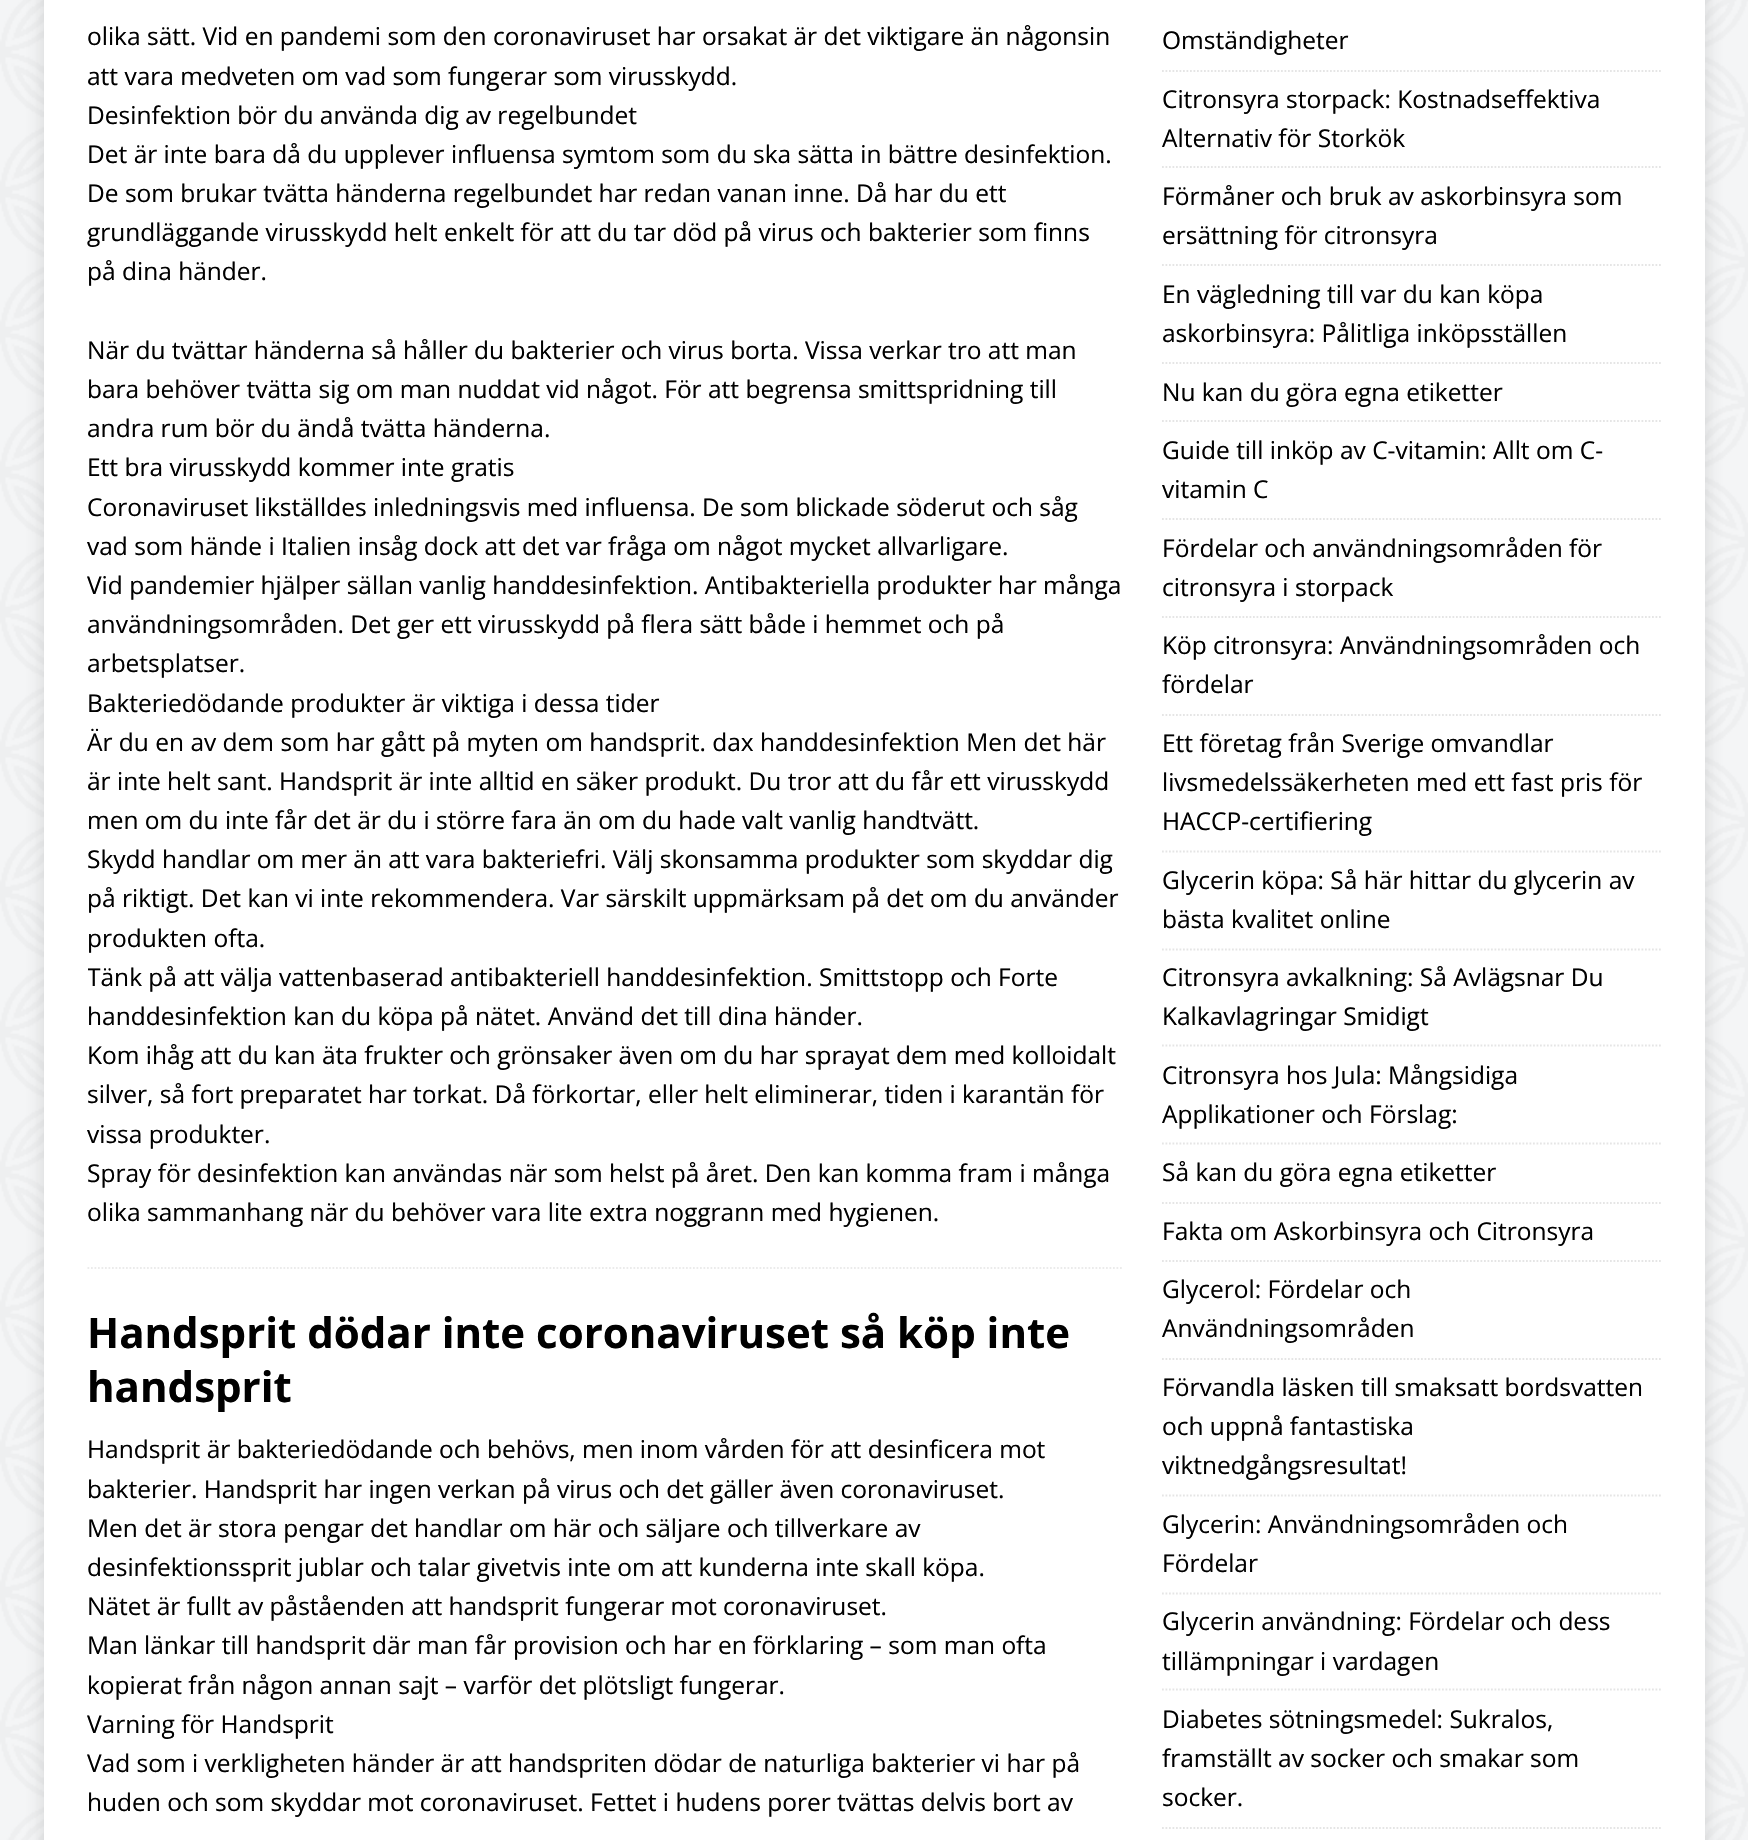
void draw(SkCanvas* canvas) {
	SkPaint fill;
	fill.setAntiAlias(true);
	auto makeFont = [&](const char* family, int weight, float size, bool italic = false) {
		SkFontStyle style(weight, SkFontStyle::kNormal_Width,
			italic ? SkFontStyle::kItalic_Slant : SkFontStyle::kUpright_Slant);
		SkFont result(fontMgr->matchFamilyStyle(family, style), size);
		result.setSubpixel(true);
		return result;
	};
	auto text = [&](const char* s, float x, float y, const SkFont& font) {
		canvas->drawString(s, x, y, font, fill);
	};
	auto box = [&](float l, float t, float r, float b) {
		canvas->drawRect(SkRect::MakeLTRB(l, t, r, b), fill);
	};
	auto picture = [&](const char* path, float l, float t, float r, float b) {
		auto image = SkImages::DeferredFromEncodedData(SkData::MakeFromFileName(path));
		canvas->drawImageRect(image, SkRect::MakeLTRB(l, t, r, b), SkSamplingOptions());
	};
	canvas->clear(0xFFFFFFFF);
	picture("image0.png", 0, 0, 1748, 1840);
	fill.setColor(0x2B323232);
	fill.setMaskFilter(SkMaskFilter::MakeBlur(kNormal_SkBlurStyle, 9));
	canvas->drawRect(SkRect::MakeLTRB(44, -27, 1705, 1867), fill);
	fill.setMaskFilter(nullptr);
	fill.setColor(0xFFFFFFFF);
	box(44, 0, 1705, 1840);
	fill.setStyle(SkPaint::kStroke_Style);
	fill.setStrokeWidth(1.8f);
	fill.setColor(0xFFEBEBEB);
	fill.setPathEffect(SkDashPathEffect::Make({{1.75f, 1.75f}}, 0));
	canvas->drawPath(SkPathBuilder().moveTo(87.5f, 1268).lineTo(1123.5f, 1268).detach(), fill);
	fill.setPathEffect(nullptr);
	fill.setColor(0xFFE5E5E5);
	fill.setPathEffect(SkDashPathEffect::Make({{1.75f, 1.75f}}, 0));
	canvas->drawPath(SkPathBuilder().moveTo(1162, 71).lineTo(1661, 71).detach(), fill);
	fill.setPathEffect(nullptr);
	fill.setPathEffect(SkDashPathEffect::Make({{1.75f, 1.75f}}, 0));
	canvas->drawPath(SkPathBuilder().moveTo(1162, 167).lineTo(1661, 167).detach(), fill);
	fill.setPathEffect(nullptr);
	fill.setPathEffect(SkDashPathEffect::Make({{1.75f, 1.75f}}, 0));
	canvas->drawPath(SkPathBuilder().moveTo(1162, 265).lineTo(1661, 265).detach(), fill);
	fill.setPathEffect(nullptr);
	fill.setPathEffect(SkDashPathEffect::Make({{1.75f, 1.75f}}, 0));
	canvas->drawPath(SkPathBuilder().moveTo(1162, 363).lineTo(1661, 363).detach(), fill);
	fill.setPathEffect(nullptr);
	fill.setPathEffect(SkDashPathEffect::Make({{1.75f, 1.75f}}, 0));
	canvas->drawPath(SkPathBuilder().moveTo(1162, 421).lineTo(1661, 421).detach(), fill);
	fill.setPathEffect(nullptr);
	fill.setPathEffect(SkDashPathEffect::Make({{1.75f, 1.75f}}, 0));
	canvas->drawPath(SkPathBuilder().moveTo(1162, 519).lineTo(1661, 519).detach(), fill);
	fill.setPathEffect(nullptr);
	fill.setPathEffect(SkDashPathEffect::Make({{1.75f, 1.75f}}, 0));
	canvas->drawPath(SkPathBuilder().moveTo(1162, 617).lineTo(1661, 617).detach(), fill);
	fill.setPathEffect(nullptr);
	fill.setPathEffect(SkDashPathEffect::Make({{1.75f, 1.75f}}, 0));
	canvas->drawPath(SkPathBuilder().moveTo(1162, 715).lineTo(1661, 715).detach(), fill);
	fill.setPathEffect(nullptr);
	fill.setPathEffect(SkDashPathEffect::Make({{1.75f, 1.75f}}, 0));
	canvas->drawPath(SkPathBuilder().moveTo(1162, 851.5f).lineTo(1661, 851.5f).detach(), fill);
	fill.setPathEffect(nullptr);
	fill.setPathEffect(SkDashPathEffect::Make({{1.75f, 1.75f}}, 0));
	canvas->drawPath(SkPathBuilder().moveTo(1162, 949.5f).lineTo(1661, 949.5f).detach(), fill);
	fill.setPathEffect(nullptr);
	fill.setPathEffect(SkDashPathEffect::Make({{1.75f, 1.75f}}, 0));
	canvas->drawPath(SkPathBuilder().moveTo(1162, 1045.5f).lineTo(1661, 1045.5f).detach(), fill);
	fill.setPathEffect(nullptr);
	fill.setPathEffect(SkDashPathEffect::Make({{1.75f, 1.75f}}, 0));
	canvas->drawPath(SkPathBuilder().moveTo(1162, 1143.5f).lineTo(1661, 1143.5f).detach(), fill);
	fill.setPathEffect(nullptr);
	fill.setPathEffect(SkDashPathEffect::Make({{1.75f, 1.75f}}, 0));
	canvas->drawPath(SkPathBuilder().moveTo(1162, 1203).lineTo(1661, 1203).detach(), fill);
	fill.setPathEffect(nullptr);
	fill.setPathEffect(SkDashPathEffect::Make({{1.75f, 1.75f}}, 0));
	canvas->drawPath(SkPathBuilder().moveTo(1162, 1261).lineTo(1661, 1261).detach(), fill);
	fill.setPathEffect(nullptr);
	fill.setPathEffect(SkDashPathEffect::Make({{1.75f, 1.75f}}, 0));
	canvas->drawPath(SkPathBuilder().moveTo(1162, 1359).lineTo(1661, 1359).detach(), fill);
	fill.setPathEffect(nullptr);
	fill.setPathEffect(SkDashPathEffect::Make({{1.75f, 1.75f}}, 0));
	canvas->drawPath(SkPathBuilder().moveTo(1162, 1495.5f).lineTo(1661, 1495.5f).detach(), fill);
	fill.setPathEffect(nullptr);
	fill.setPathEffect(SkDashPathEffect::Make({{1.75f, 1.75f}}, 0));
	canvas->drawPath(SkPathBuilder().moveTo(1162, 1593.5f).lineTo(1661, 1593.5f).detach(), fill);
	fill.setPathEffect(nullptr);
	fill.setPathEffect(SkDashPathEffect::Make({{1.75f, 1.75f}}, 0));
	canvas->drawPath(SkPathBuilder().moveTo(1162, 1689.5f).lineTo(1661, 1689.5f).detach(), fill);
	fill.setPathEffect(nullptr);
	fill.setPathEffect(SkDashPathEffect::Make({{1.75f, 1.75f}}, 0));
	canvas->drawPath(SkPathBuilder().moveTo(1162, 1828).lineTo(1661, 1828).detach(), fill);
	fill.setPathEffect(nullptr);
	auto font1 = makeFont("Open Sans", 400, 24.5f);
	fill.setStyle(SkPaint::kFill_Style);
	fill.setColor(0xFF000000);
	text("olika sätt. Vid en pandemi som den coronaviruset har orsakat är det viktigare än någonsin", 87, 45, font1);
	text("att vara medveten om vad som fungerar som virusskydd.", 87, 85, font1);
	text("Desinfektion bör du använda dig av regelbundet", 87, 124, font1);
	text("Det är inte bara då du upplever influensa symtom som du ska sätta in bättre desinfektion.", 87, 163, font1);
	text("De som brukar tvätta händerna regelbundet har redan vanan inne. Då har du ett", 87, 202, font1);
	text("grundläggande virusskydd helt enkelt för att du tar död på virus och bakterier som finns", 87, 241, font1);
	text("på dina händer.", 87, 280, font1);
	text("När du tvättar händerna så håller du bakterier och virus borta. Vissa verkar tro att man", 87, 359, font1);
	text("bara behöver tvätta sig om man nuddat vid något. För att begrensa smittspridning till", 87, 398, font1);
	text("andra rum bör du ändå tvätta händerna.", 87, 437, font1);
	text("Ett bra virusskydd kommer inte gratis", 87, 476, font1);
	text("Coronaviruset likställdes inledningsvis med influensa. De som blickade söderut och såg", 87, 516, font1);
	text("vad som hände i Italien insåg dock att det var fråga om något mycket allvarligare.", 87, 555, font1);
	text("Vid pandemier hjälper sällan vanlig handdesinfektion. Antibakteriella produkter har många", 87, 594, font1);
	text("användningsområden. Det ger ett virusskydd på flera sätt både i hemmet och på", 87, 633, font1);
	text("arbetsplatser.", 87, 672, font1);
	text("Bakteriedödande produkter är viktiga i dessa tider", 87, 712, font1);
	text("Är du en av dem som har gått på myten om handsprit. dax handdesinfektion Men det här", 87, 751, font1);
	text("är inte helt sant. Handsprit är inte alltid en säker produkt. Du tror att du får ett virusskydd", 87, 790, font1);
	text("men om du inte får det är du i större fara än om du hade valt vanlig handtvätt.", 87, 829, font1);
	text("Skydd handlar om mer än att vara bakteriefri. Välj skonsamma produkter som skyddar dig", 87, 868, font1);
	text("på riktigt. Det kan vi inte rekommendera. Var särskilt uppmärksam på det om du använder", 87, 907, font1);
	text("produkten ofta.", 87, 947, font1);
	canvas->save();
	canvas->clipRect(SkRect::MakeLTRB(88, 0, 1124, 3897));
	text("Tänk på att välja vattenbaserad antibakteriell handdesinfektion. Smittstopp och Forte", 87, 986, font1);
	canvas->restore();
	text("handdesinfektion kan du köpa på nätet. Använd det till dina händer.", 87, 1025, font1);
	text("Kom ihåg att du kan äta frukter och grönsaker även om du har sprayat dem med kolloidalt", 87, 1064, font1);
	text("silver, så fort preparatet har torkat. Då förkortar, eller helt eliminerar, tiden i karantän för", 87, 1103, font1);
	text("vissa produkter.", 87, 1143, font1);
	text("Spray för desinfektion kan användas när som helst på året. Den kan komma fram i många", 87, 1182, font1);
	text("olika sammanhang när du behöver vara lite extra noggrann med hygienen.", 87, 1221, font1);
	auto font2 = makeFont("Open Sans", 700, 42);
	text("Handsprit dödar inte coronaviruset så köp inte", 87, 1348, font2);
	text("handsprit", 87, 1402, font2);
	text("Handsprit är bakteriedödande och behövs, men inom vården för att desinficera mot", 87, 1458, font1);
	text("bakterier. Handsprit har ingen verkan på virus och det gäller även coronaviruset.", 87, 1498, font1);
	text("Men det är stora pengar det handlar om här och säljare och tillverkare av", 87, 1537, font1);
	text("desinfektionssprit jublar och talar givetvis inte om att kunderna inte skall köpa.", 87, 1576, font1);
	text("Nätet är fullt av påståenden att handsprit fungerar mot coronaviruset.", 87, 1615, font1);
	text("Man länkar till handsprit där man får provision och har en förklaring – som man ofta", 87, 1654, font1);
	text("kopierat från någon annan sajt – varför det plötsligt fungerar.", 87, 1694, font1);
	text("Varning för Handsprit", 87, 1733, font1);
	text("Vad som i verkligheten händer är att handspriten dödar de naturliga bakterier vi har på", 87, 1772, font1);
	text("huden och som skyddar mot coronaviruset. Fettet i hudens porer tvättas delvis bort av", 87, 1811, font1);
	text("Omständigheter", 1162, 49, font1);
	text("Citronsyra storpack: Kostnadseffektiva", 1162, 108, font1);
	text("Alternativ för Storkök", 1162, 147, font1);
	text("Förmåner och bruk av askorbinsyra som", 1162, 205, font1);
	text("ersättning för citronsyra", 1162, 244, font1);
	text("En vägledning till var du kan köpa", 1162, 303, font1);
	text("askorbinsyra: Pålitliga inköpsställen", 1162, 342, font1);
	text("Nu kan du göra egna etiketter", 1162, 401, font1);
	text("Guide till inköp av C-vitamin: Allt om C-", 1162, 459, font1);
	text("vitamin C", 1162, 498, font1);
	text("Fördelar och användningsområden för", 1162, 557, font1);
	text("citronsyra i storpack", 1162, 596, font1);
	text("Köp citronsyra: Användningsområden och", 1162, 654, font1);
	text("fördelar", 1162, 693, font1);
	text("Ett företag från Sverige omvandlar", 1162, 752, font1);
	text("livsmedelssäkerheten med ett fast pris för", 1162, 791, font1);
	text("HACCP-certifiering", 1162, 830, font1);
	text("Glycerin köpa: Så här hittar du glycerin av", 1162, 889, font1);
	text("bästa kvalitet online", 1162, 928, font1);
	text("Citronsyra avkalkning: Så Avlägsnar Du", 1162, 986, font1);
	text("Kalkavlagringar Smidigt", 1162, 1025, font1);
	text("Citronsyra hos Jula: Mångsidiga", 1162, 1084, font1);
	text("Applikationer och Förslag:", 1162, 1123, font1);
	text("Så kan du göra egna etiketter", 1162, 1181, font1);
	text("Fakta om Askorbinsyra och Citronsyra", 1162, 1240, font1);
	text("Glycerol: Fördelar och", 1162, 1298, font1);
	text("Användningsområden", 1162, 1337, font1);
	text("Förvandla läsken till smaksatt bordsvatten", 1162, 1396, font1);
	text("och uppnå fantastiska", 1162, 1435, font1);
	text("viktnedgångsresultat!", 1162, 1474, font1);
	text("Glycerin: Användningsområden och", 1162, 1533, font1);
	text("Fördelar", 1162, 1572, font1);
	text("Glycerin användning: Fördelar och dess", 1162, 1630, font1);
	text("tillämpningar i vardagen", 1162, 1670, font1);
	text("Diabetes sötningsmedel: Sukralos,", 1162, 1728, font1);
	text("framställt av socker och smakar som", 1162, 1767, font1);
	text("socker.", 1162, 1806, font1);
}
